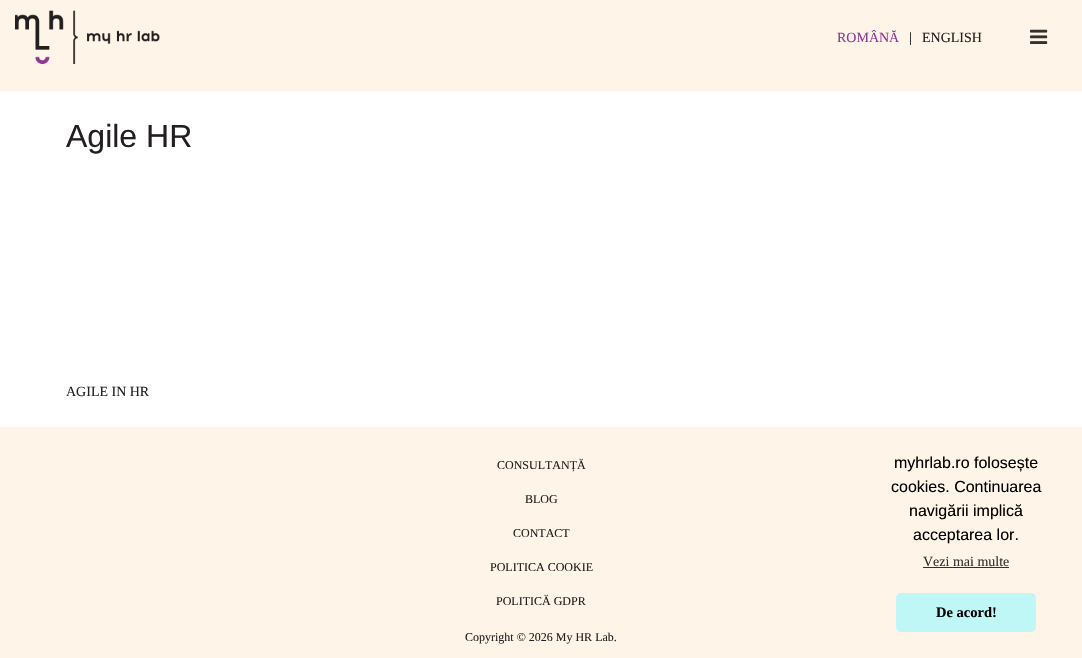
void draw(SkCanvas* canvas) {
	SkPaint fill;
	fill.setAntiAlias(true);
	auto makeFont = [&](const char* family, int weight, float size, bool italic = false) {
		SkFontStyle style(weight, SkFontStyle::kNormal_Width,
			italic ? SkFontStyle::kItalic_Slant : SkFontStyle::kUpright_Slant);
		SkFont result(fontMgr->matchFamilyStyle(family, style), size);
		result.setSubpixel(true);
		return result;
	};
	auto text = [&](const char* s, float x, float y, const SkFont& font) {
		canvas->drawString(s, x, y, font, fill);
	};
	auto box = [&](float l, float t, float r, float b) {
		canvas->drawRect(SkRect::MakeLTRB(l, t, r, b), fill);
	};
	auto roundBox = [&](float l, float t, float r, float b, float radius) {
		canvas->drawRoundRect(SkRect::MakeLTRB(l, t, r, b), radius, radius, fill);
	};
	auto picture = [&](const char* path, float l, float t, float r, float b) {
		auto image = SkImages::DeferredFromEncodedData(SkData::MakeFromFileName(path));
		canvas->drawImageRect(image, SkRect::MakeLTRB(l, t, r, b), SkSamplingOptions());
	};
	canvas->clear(0xFFFFFFFF);
	fill.setColor(0xFFFFF4E8);
	box(0, 0, 1082, 91);
	picture("image0.png", 15, 10, 160, 64);
	picture("image1.png", 1030, 29, 1048, 44);
	box(0, 427, 1082, 658);
	fill.setColor(0xFF33312E);
	box(923, 567, 1009, 568);
	fill.setColor(0xFFBEF7F6);
	roundBox(896, 593, 1036, 632, 5);
	auto font1 = makeFont("Liberation Serif", 400, 14);
	fill.setColor(0xFF8F3791);
	text("ROMÂNĂ", 837, 42, font1);
	fill.setColor(0xFF000000);
	text("|", 909, 42, font1);
	fill.setColor(0xFF231F20);
	text("ENGLISH", 922, 42, font1);
	auto font2 = makeFont("Liberation Sans", 400, 32);
	text("Agile HR", 66, 147, font2);
	text("AGILE IN HR", 66, 396, font1);
	auto font3 = makeFont("Liberation Serif", 400, 12);
	text("CONSULTANȚĂ", 497, 469, font3);
	text("BLOG", 525, 503, font3);
	text("CONTACT", 513, 537, font3);
	text("POLITICA COOKIE", 490, 571, font3);
	text("POLITICĂ GDPR", 496, 605, font3);
	text("Copyright © 2026 My HR Lab.", 465, 641, font3);
	auto font4 = makeFont("Liberation Sans", 400, 16);
	fill.setColor(0xFF000000);
	text("myhrlab.ro folosește", 894, 468, font4);
	text("cookies. Continuarea", 891, 492, font4);
	text("navigării implică", 909, 516, font4);
	text("acceptarea lor.", 913, 540, font4);
	fill.setColor(0xFF33312E);
	text("Vezi mai multe", 923, 566, font1);
	auto font5 = makeFont("Liberation Serif", 700, 14.5f);
	fill.setColor(0xFF000000);
	text("De acord!", 936, 617, font5);
}
